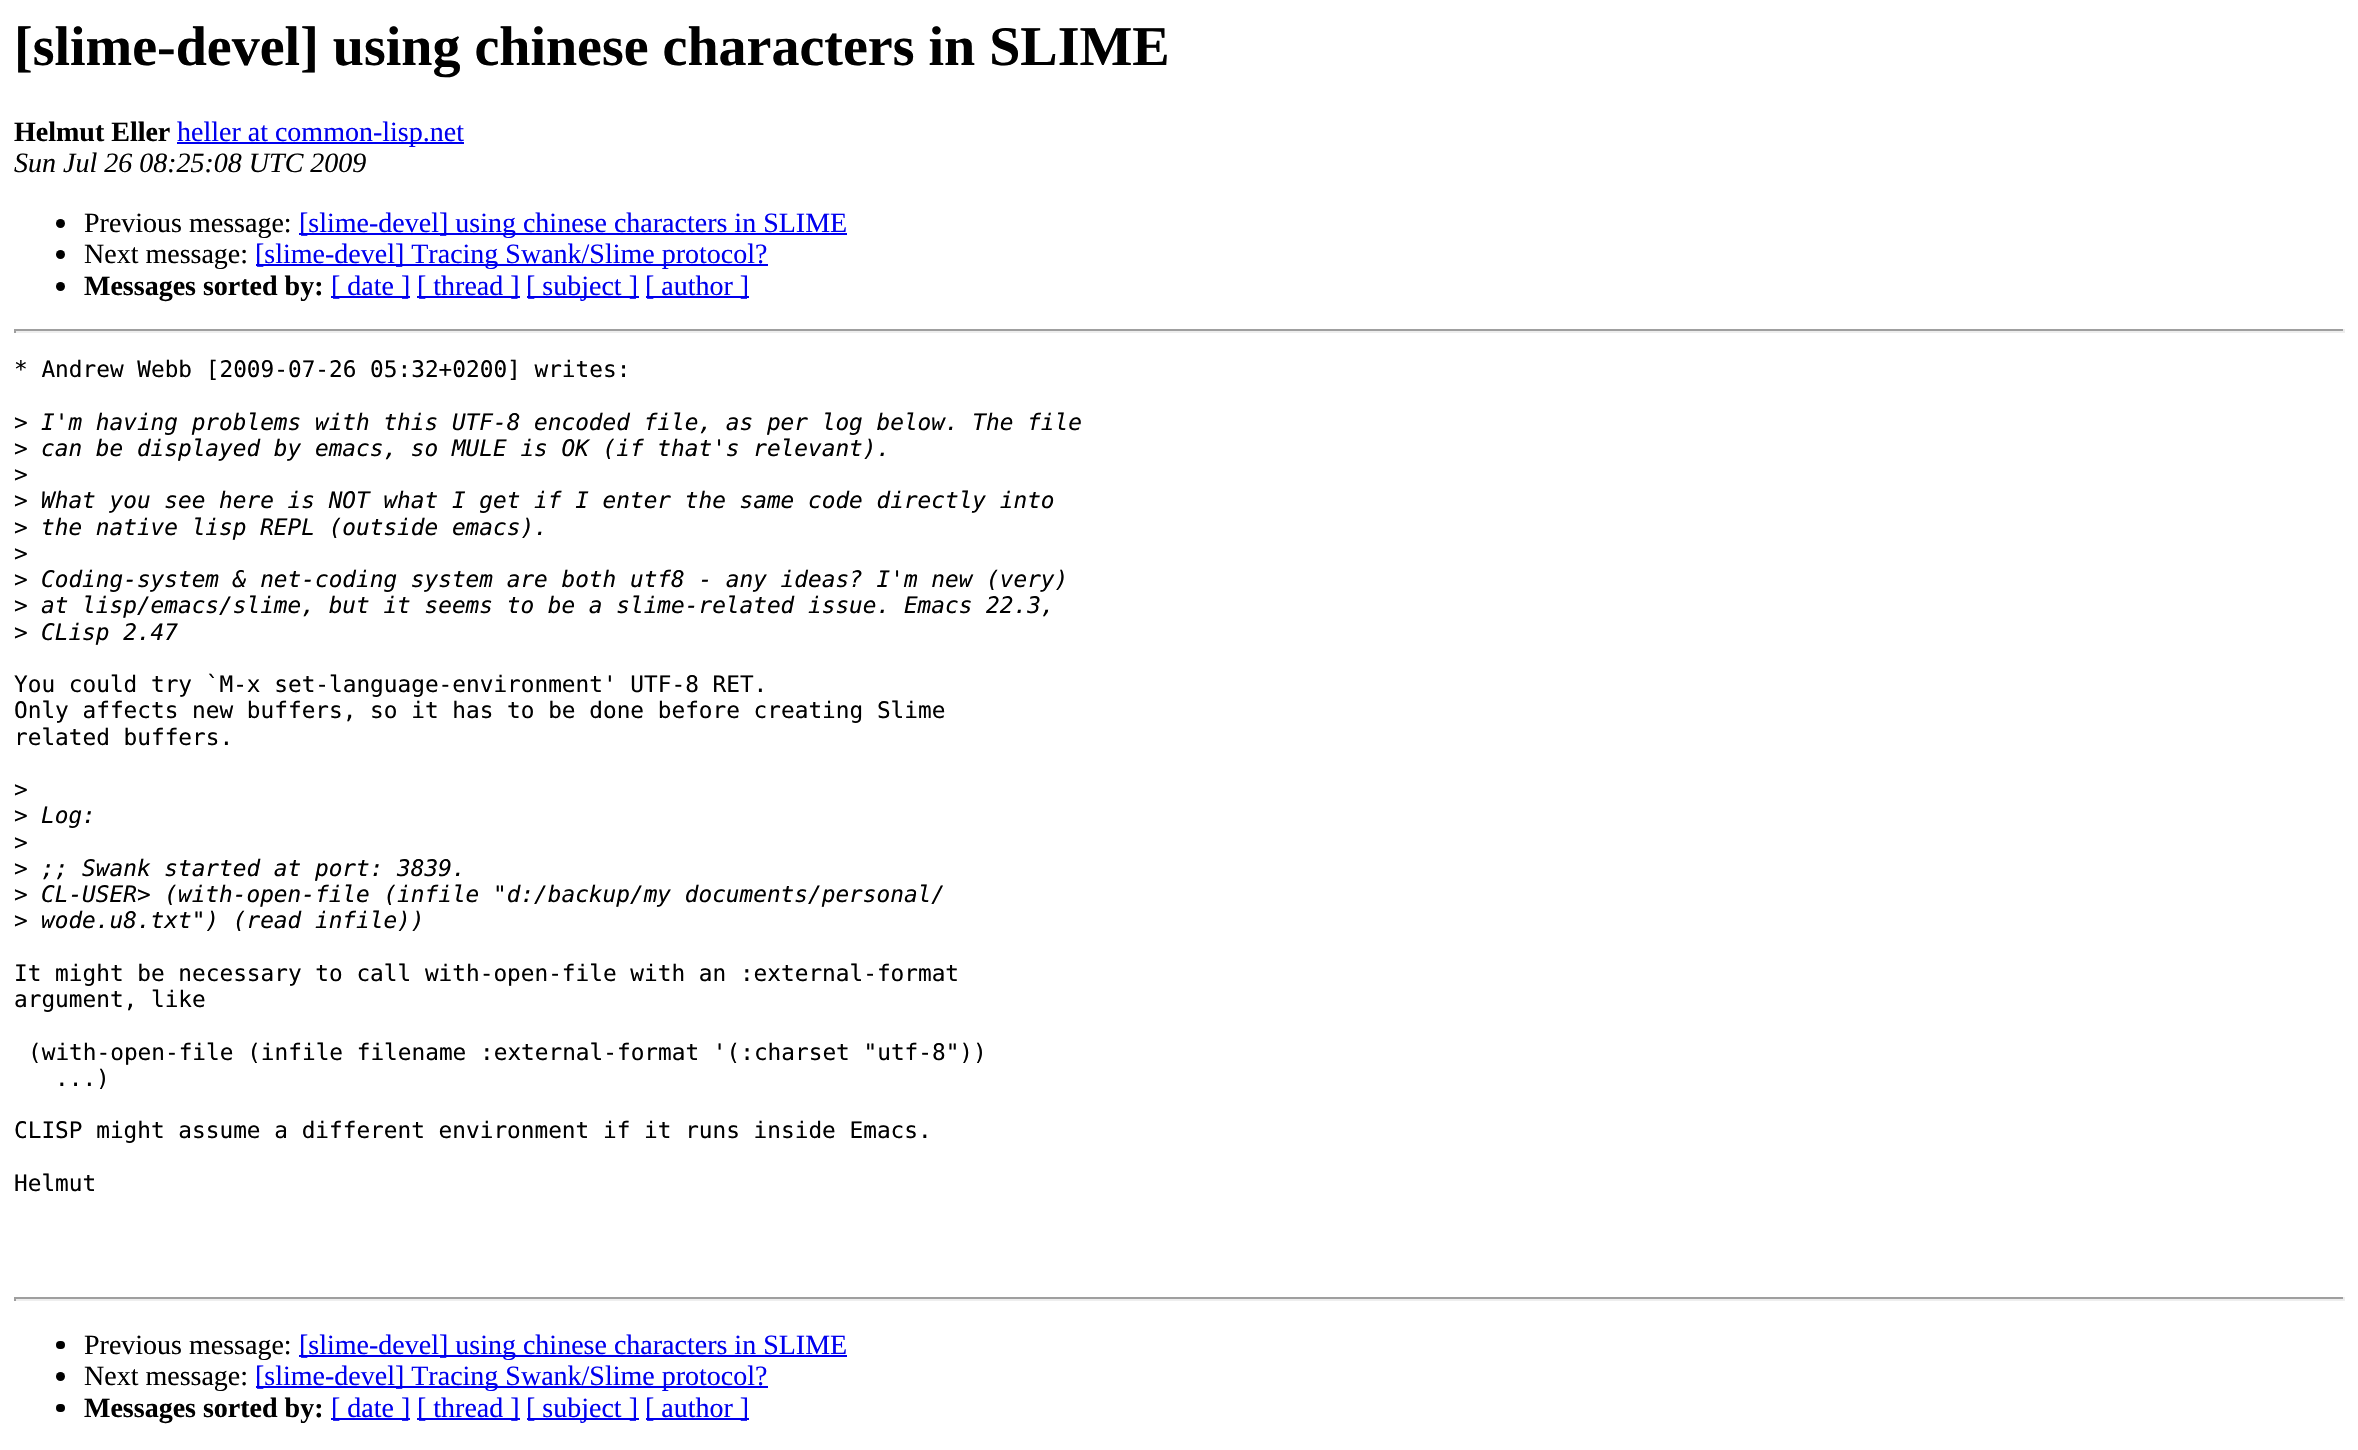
void draw(SkCanvas* canvas) {
	SkPaint fill;
	fill.setAntiAlias(true);
	auto makeFont = [&](const char* family, int weight, float size, bool italic = false) {
		SkFontStyle style(weight, SkFontStyle::kNormal_Width,
			italic ? SkFontStyle::kItalic_Slant : SkFontStyle::kUpright_Slant);
		SkFont result(fontMgr->matchFamilyStyle(family, style), size);
		result.setSubpixel(true);
		return result;
	};
	auto text = [&](const char* s, float x, float y, const SkFont& font) {
		canvas->drawString(s, x, y, font, fill);
	};
	auto box = [&](float l, float t, float r, float b) {
		canvas->drawRect(SkRect::MakeLTRB(l, t, r, b), fill);
	};
	auto roundBox = [&](float l, float t, float r, float b, float radius) {
		canvas->drawRoundRect(SkRect::MakeLTRB(l, t, r, b), radius, radius, fill);
	};
	canvas->clear(0xFFFFFFFF);
	fill.setColor(0xFF0000EE);
	box(177, 142, 464, 144);
	fill.setColor(0xFF000000);
	canvas->drawCircle(60.5f, 223.5f, 4.5f, fill);
	fill.setColor(0xFF0000EE);
	box(299, 233, 847, 235);
	fill.setColor(0xFF000000);
	canvas->drawCircle(60.5f, 254.5f, 4.5f, fill);
	fill.setColor(0xFF0000EE);
	box(256, 264, 768, 266);
	fill.setColor(0xFF000000);
	canvas->drawCircle(60.5f, 286.5f, 4.5f, fill);
	fill.setColor(0xFF0000EE);
	box(331, 296, 410, 298);
	box(417, 296, 520, 298);
	box(527, 296, 639, 298);
	box(646, 296, 749, 298);
	fill.setColor(0xFF9F9F9F);
	box(14, 329, 2345, 331);
	fill.setColor(0xFFEEEEEE);
	box(2343, 329, 2345, 333);
	box(14, 331, 2345, 333);
	fill.setColor(0xFF9F9F9F);
	box(14, 329, 16, 333);
	box(14, 1297, 2345, 1299);
	fill.setColor(0xFFEEEEEE);
	box(2343, 1297, 2345, 1301);
	box(14, 1299, 2345, 1301);
	fill.setColor(0xFF9F9F9F);
	box(14, 1297, 16, 1301);
	fill.setColor(0xFF000000);
	roundBox(56, 1341, 65, 1349, 4);
	fill.setColor(0xFF0000EE);
	box(299, 1355, 847, 1357);
	fill.setColor(0xFF000000);
	canvas->drawCircle(60.5f, 1376.5f, 4.5f, fill);
	fill.setColor(0xFF0000EE);
	box(256, 1386, 768, 1388);
	fill.setColor(0xFF000000);
	roundBox(56, 1404, 65, 1412, 4);
	fill.setColor(0xFF0000EE);
	box(331, 1418, 410, 1420);
	box(417, 1418, 520, 1420);
	box(527, 1418, 639, 1420);
	box(646, 1418, 749, 1420);
	auto font1 = makeFont("Liberation Serif", 700, 56);
	fill.setColor(0xFF000000);
	text("[slime-devel] using chinese characters in SLIME", 14, 65, font1);
	auto font2 = makeFont("Liberation Serif", 700, 28);
	text("Helmut Eller", 14, 141, font2);
	auto font3 = makeFont("Liberation Serif", 400, 28);
	fill.setColor(0xFF0000EE);
	text("heller at common-lisp.net", 177, 141, font3);
	auto font4 = makeFont("Liberation Serif", 400, 28, true);
	fill.setColor(0xFF000000);
	text("Sun Jul 26 08:25:08 UTC 2009", 14, 172, font4);
	text("Previous message:", 84, 232, font3);
	fill.setColor(0xFF0000EE);
	text("[slime-devel] using chinese characters in SLIME", 299, 232, font3);
	fill.setColor(0xFF000000);
	text("Next message:", 84, 263, font3);
	fill.setColor(0xFF0000EE);
	text("[slime-devel] Tracing Swank/Slime protocol?", 255, 263, font3);
	fill.setColor(0xFF000000);
	text("Messages sorted by:", 84, 295, font2);
	fill.setColor(0xFF0000EE);
	text("[ date ]", 331, 295, font3);
	text("[ thread ]", 417, 295, font3);
	text("[ subject ]", 526, 295, font3);
	text("[ author ]", 645, 295, font3);
	auto font5 = makeFont("DejaVu Sans Mono", 400, 22.75f);
	fill.setColor(0xFF000000);
	text("* Andrew Webb [2009-07-26 05:32+0200] writes:", 14, 377, font5);
	text(">", 14, 430, font5);
	auto font6 = makeFont("DejaVu Sans Mono", 400, 22.75f, true);
	text("I'm having problems with this UTF-8 encoded file, as per log below. The file", 41, 430, font6);
	text(">", 14, 456, font5);
	text("can be displayed by emacs, so MULE is OK (if that's relevant).", 41, 456, font6);
	text(">", 14, 482, font5);
	text(">", 14, 508, font5);
	text("What you see here is NOT what I get if I enter the same code directly into", 41, 508, font6);
	text(">", 14, 535, font5);
	text("the native lisp REPL (outside emacs).", 41, 535, font6);
	text(">", 14, 561, font5);
	text(">", 14, 587, font5);
	text("Coding-system & net-coding system are both utf8 - any ideas? I'm new (very)", 41, 587, font6);
	text(">", 14, 613, font5);
	text("at lisp/emacs/slime, but it seems to be a slime-related issue. Emacs 22.3,", 41, 613, font6);
	text(">", 14, 640, font5);
	text("CLisp 2.47", 41, 640, font6);
	text("You could try `M-x set-language-environment' UTF-8 RET.", 14, 692, font5);
	text("Only affects new buffers, so it has to be done before creating Slime", 14, 718, font5);
	text("related buffers.", 14, 745, font5);
	text(">", 14, 797, font5);
	text(">", 14, 823, font5);
	text("Log:", 41, 823, font6);
	text(">", 14, 850, font5);
	text(">", 14, 876, font5);
	text(";; Swank started at port: 3839.", 41, 876, font6);
	text(">", 14, 902, font5);
	text("CL-USER> (with-open-file (infile \"d:/backup/my documents/personal/", 41, 902, font6);
	text(">", 14, 928, font5);
	text("wode.u8.txt\") (read infile))", 41, 928, font6);
	text("It might be necessary to call with-open-file with an :external-format", 14, 981, font5);
	text("argument, like", 14, 1007, font5);
	text("(with-open-file (infile filename :external-format '(:charset \"utf-8\"))", 28, 1060, font5);
	text("...)", 55, 1086, font5);
	text("CLISP might assume a different environment if it runs inside Emacs.", 14, 1138, font5);
	text("Helmut", 14, 1191, font5);
	text("Previous message:", 84, 1354, font3);
	fill.setColor(0xFF0000EE);
	text("[slime-devel] using chinese characters in SLIME", 299, 1354, font3);
	fill.setColor(0xFF000000);
	text("Next message:", 84, 1385, font3);
	fill.setColor(0xFF0000EE);
	text("[slime-devel] Tracing Swank/Slime protocol?", 255, 1385, font3);
	fill.setColor(0xFF000000);
	text("Messages sorted by:", 84, 1417, font2);
	fill.setColor(0xFF0000EE);
	text("[ date ]", 331, 1417, font3);
	text("[ thread ]", 417, 1417, font3);
	text("[ subject ]", 526, 1417, font3);
	text("[ author ]", 645, 1417, font3);
}
